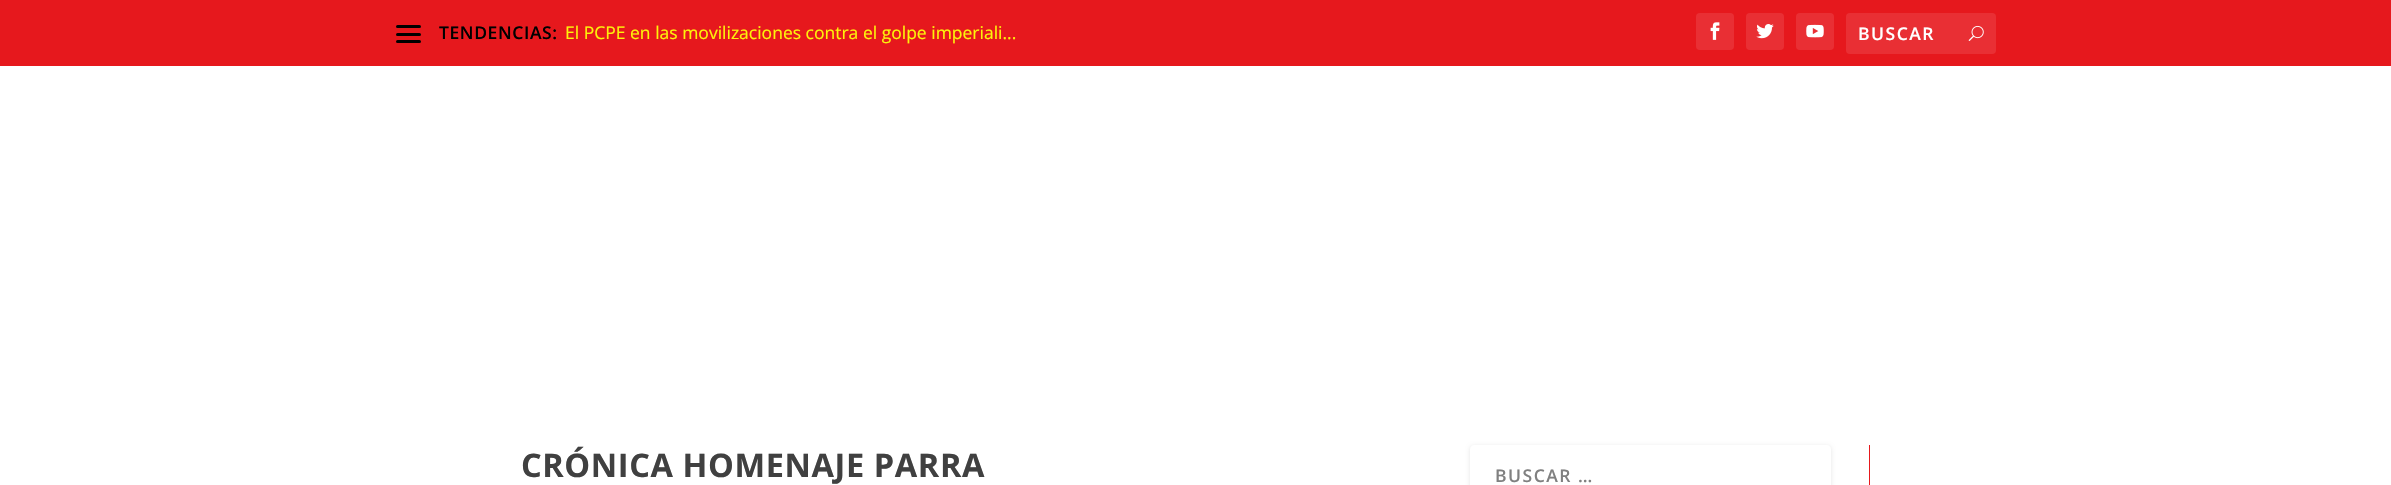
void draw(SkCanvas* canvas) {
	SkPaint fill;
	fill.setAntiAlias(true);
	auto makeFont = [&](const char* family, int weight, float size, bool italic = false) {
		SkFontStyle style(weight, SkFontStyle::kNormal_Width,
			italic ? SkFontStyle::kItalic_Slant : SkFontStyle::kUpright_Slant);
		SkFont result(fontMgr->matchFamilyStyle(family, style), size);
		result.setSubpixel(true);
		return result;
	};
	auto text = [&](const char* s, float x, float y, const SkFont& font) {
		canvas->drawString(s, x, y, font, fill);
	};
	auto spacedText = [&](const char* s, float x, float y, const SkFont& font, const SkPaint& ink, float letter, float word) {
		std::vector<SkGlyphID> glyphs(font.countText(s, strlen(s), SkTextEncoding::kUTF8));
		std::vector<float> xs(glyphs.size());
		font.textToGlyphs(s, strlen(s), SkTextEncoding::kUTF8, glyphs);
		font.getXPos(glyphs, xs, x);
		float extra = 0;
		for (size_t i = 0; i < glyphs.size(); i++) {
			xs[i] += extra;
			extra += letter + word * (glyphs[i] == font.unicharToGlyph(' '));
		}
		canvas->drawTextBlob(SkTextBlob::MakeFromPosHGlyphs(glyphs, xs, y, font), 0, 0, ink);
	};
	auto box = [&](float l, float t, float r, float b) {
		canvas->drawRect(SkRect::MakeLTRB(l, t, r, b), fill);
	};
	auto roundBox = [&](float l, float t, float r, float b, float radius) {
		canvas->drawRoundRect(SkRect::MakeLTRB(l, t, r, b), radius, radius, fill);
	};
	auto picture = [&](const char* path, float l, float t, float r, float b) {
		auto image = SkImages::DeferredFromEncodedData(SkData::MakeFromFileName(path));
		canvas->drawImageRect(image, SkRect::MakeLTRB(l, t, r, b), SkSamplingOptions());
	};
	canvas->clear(0xFFFFFFFF);
	fill.setColor(0xFFE6181D);
	box(0, 0, 2391, 66);
	fill.setColor(0xFF000000);
	roundBox(396, 25, 421, 28, 1.5f);
	roundBox(396, 33, 421, 36, 1.5f);
	roundBox(396, 40, 421, 43, 1.5f);
	fill.setColor(0xFFE92F34);
	roundBox(1696, 13, 1734, 50, 4);
	picture("image0.png", 1710, 22, 1720, 40);
	roundBox(1746, 13, 1784, 50, 4);
	picture("image1.png", 1756, 24, 1774, 39);
	roundBox(1796, 13, 1834, 50, 4);
	picture("image2.png", 1806, 24, 1824, 38);
	roundBox(1846, 13, 1996, 54, 4);
	picture("image3.png", 1968, 25, 1984, 41);
	fill.setColor(0xFFE6191D);
	box(1869, 445, 1870, 485);
	canvas->save();
	canvas->clipPath(SkPathBuilder(SkPathFillType::kEvenOdd).moveTo(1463, 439).lineTo(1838, 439).lineTo(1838, 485).lineTo(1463, 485).close().moveTo(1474, 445).lineTo(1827, 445).cubicTo(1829, 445, 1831, 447, 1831, 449).lineTo(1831, 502).cubicTo(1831, 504, 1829, 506, 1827, 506).lineTo(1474, 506).cubicTo(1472, 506, 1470, 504, 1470, 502).lineTo(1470, 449).cubicTo(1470, 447, 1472, 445, 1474, 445).close().detach(), true);
	fill.setColor(0x1A000000);
	fill.setMaskFilter(SkMaskFilter::MakeBlur(kNormal_SkBlurStyle, 2));
	canvas->drawRoundRect(SkRect::MakeLTRB(1470, 446, 1831, 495), 4, 4, fill);
	fill.setMaskFilter(nullptr);
	canvas->restore();
	auto font1 = makeFont("Open Sans", 600, 17.5f);
	fill.setColor(0xFF000000);
	spacedText("TENDENCIAS:", 439, 39, font1, fill, 0.6f, 0);
	auto font2 = makeFont("Open Sans", 400, 17.5f);
	fill.setColor(0xFFFDF30A);
	text("El PCPE en las movilizaciones contra el golpe imperiali...", 565, 39, font2);
	fill.setColor(0xFFFFFFFF);
	spacedText("BUSCAR", 1858, 40, font1, fill, 1.5f, 0);
	auto font3 = makeFont("Open Sans", 700, 32.5f);
	fill.setColor(0xFF404040);
	spacedText("CRÓNICA HOMENAJE PARRA", 521, 477, font3, fill, 0.6f, 0);
	fill.setColor(0xFF808080);
	spacedText("BUSCAR …", 1495, 482, font1, fill, 1.5f, 0);
}
